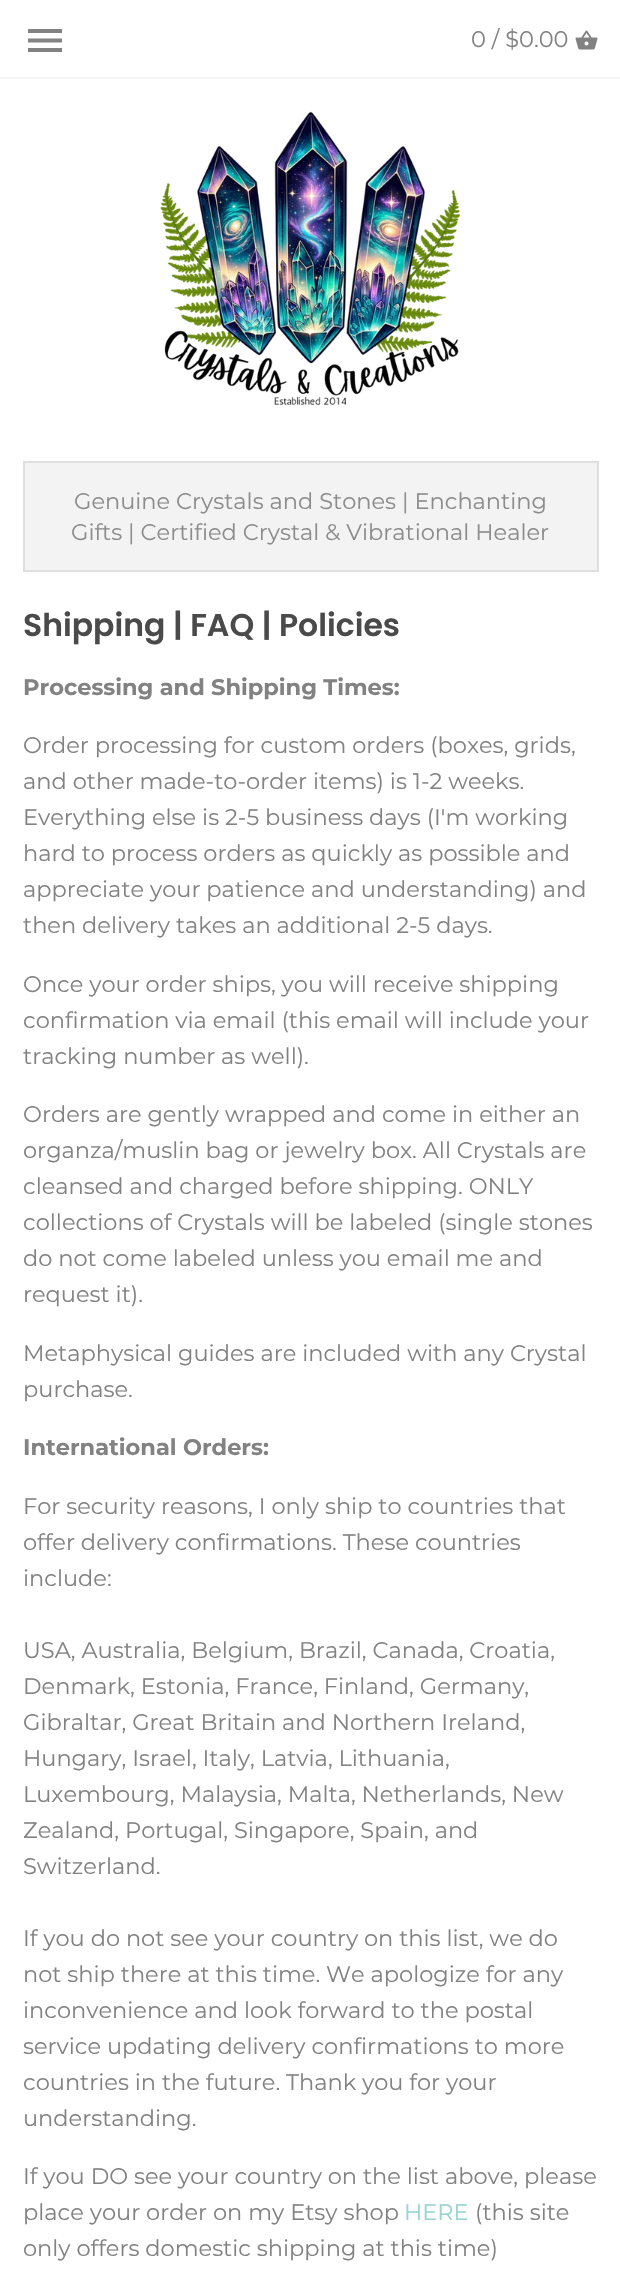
void draw(SkCanvas* canvas) {
	SkPaint fill;
	fill.setAntiAlias(true);
	auto makeFont = [&](const char* family, int weight, float size, bool italic = false) {
		SkFontStyle style(weight, SkFontStyle::kNormal_Width,
			italic ? SkFontStyle::kItalic_Slant : SkFontStyle::kUpright_Slant);
		SkFont result(fontMgr->matchFamilyStyle(family, style), size);
		result.setSubpixel(true);
		return result;
	};
	auto text = [&](const char* s, float x, float y, const SkFont& font) {
		canvas->drawString(s, x, y, font, fill);
	};
	auto box = [&](float l, float t, float r, float b) {
		canvas->drawRect(SkRect::MakeLTRB(l, t, r, b), fill);
	};
	auto picture = [&](const char* path, float l, float t, float r, float b) {
		auto image = SkImages::DeferredFromEncodedData(SkData::MakeFromFileName(path));
		canvas->drawImageRect(image, SkRect::MakeLTRB(l, t, r, b), SkSamplingOptions());
	};
	canvas->clear(0xFFFFFFFF);
	fill.setColor(0xFFF4F4F4);
	box(0, 77, 620, 79);
	fill.setColor(0xFF828282);
	canvas->drawPath(SkPathBuilder().moveTo(28, 52).lineTo(62, 52).lineTo(62, 48).lineTo(28, 48).close().moveTo(28, 42.5f).lineTo(62, 42.5f).lineTo(62, 38.5f).lineTo(28, 38.5f).close().moveTo(28, 29).lineTo(28, 33).lineTo(62, 33).lineTo(62, 29).close().detach(), fill);
	picture("image0.png", 575, 30, 598, 50);
	picture("image1.png", 160, 111, 461, 405);
	fill.setColor(0xFFF3F3F3);
	canvas->drawRect(SkRect::MakeLTRB(24, 462, 598, 571), fill);
	fill.setStyle(SkPaint::kStroke_Style);
	fill.setStrokeWidth(2);
	fill.setColor(0xFFDFDFDF);
	canvas->drawRect(SkRect::MakeLTRB(24, 462, 598, 571), fill);
	auto font1 = makeFont("Montserrat", 400, 22.5f);
	fill.setStyle(SkPaint::kFill_Style);
	fill.setColor(0xFF828282);
	text("0 / $0.00", 471, 47, font1);
	fill.setColor(0xFF8C8C8C);
	text("Genuine Crystals and Stones | Enchanting", 74, 509, font1);
	text("Gifts | Certified Crystal & Vibrational Healer", 71, 540, font1);
	auto font2 = makeFont("Poppins", 600, 31.5f);
	fill.setColor(0xFF4A4A4A);
	text("Shipping | FAQ | Policies", 23, 636, font2);
	auto font3 = makeFont("Montserrat", 700, 22.5f);
	fill.setColor(0xFF828282);
	text("Processing and Shipping Times:", 23, 695, font3);
	text("Order processing for custom orders (boxes, grids,", 23, 753, font1);
	text("and other made-to-order items) is 1-2 weeks.", 23, 789, font1);
	text("Everything else is 2-5 business days (I'm working", 23, 825, font1);
	text("hard to process orders as quickly as possible and", 23, 861, font1);
	text("appreciate your patience and understanding) and", 23, 897, font1);
	text("then delivery takes an additional 2-5 days.", 23, 933, font1);
	text("Once your order ships, you will receive shipping", 23, 992, font1);
	text("confirmation via email (this email will include your", 23, 1028, font1);
	text("tracking number as well).", 23, 1064, font1);
	text("Orders are gently wrapped and come in either an", 23, 1122, font1);
	text("organza/muslin bag or jewelry box. All Crystals are", 23, 1158, font1);
	text("cleansed and charged before shipping. ONLY", 23, 1194, font1);
	text("collections of Crystals will be labeled (single stones", 23, 1230, font1);
	text("do not come labeled unless you email me and", 23, 1266, font1);
	text("request it).", 23, 1302, font1);
	text("Metaphysical guides are included with any Crystal", 23, 1361, font1);
	text("purchase.", 23, 1397, font1);
	text("International Orders:", 23, 1455, font3);
	text("For security reasons, I only ship to countries that", 23, 1514, font1);
	text("offer delivery confirmations. These countries", 23, 1550, font1);
	text("include:", 23, 1586, font1);
	text("USA, Australia, Belgium, Brazil, Canada, Croatia,", 23, 1658, font1);
	text("Denmark, Estonia, France, Finland, Germany,", 23, 1694, font1);
	text("Gibraltar, Great Britain and Northern Ireland,", 23, 1730, font1);
	text("Hungary, Israel, Italy, Latvia, Lithuania,", 23, 1766, font1);
	text("Luxembourg, Malaysia, Malta, Netherlands, New", 23, 1802, font1);
	text("Zealand, Portugal, Singapore, Spain, and", 23, 1838, font1);
	text("Switzerland.", 23, 1874, font1);
	text("If you do not see your country on this list, we do", 23, 1946, font1);
	text("not ship there at this time. We apologize for any", 23, 1982, font1);
	text("inconvenience and look forward to the postal", 23, 2018, font1);
	text("service updating delivery confirmations to more", 23, 2054, font1);
	text("countries in the future. Thank you for your", 23, 2090, font1);
	text("understanding.", 23, 2126, font1);
	text("If you DO see your country on the list above, please", 23, 2184, font1);
	text("place your order on my Etsy shop", 23, 2220, font1);
	fill.setColor(0xFF98D4D2);
	text("HERE", 404, 2220, font1);
	fill.setColor(0xFF828282);
	text("(this site", 475, 2220, font1);
	text("only offers domestic shipping at this time)", 23, 2256, font1);
}
